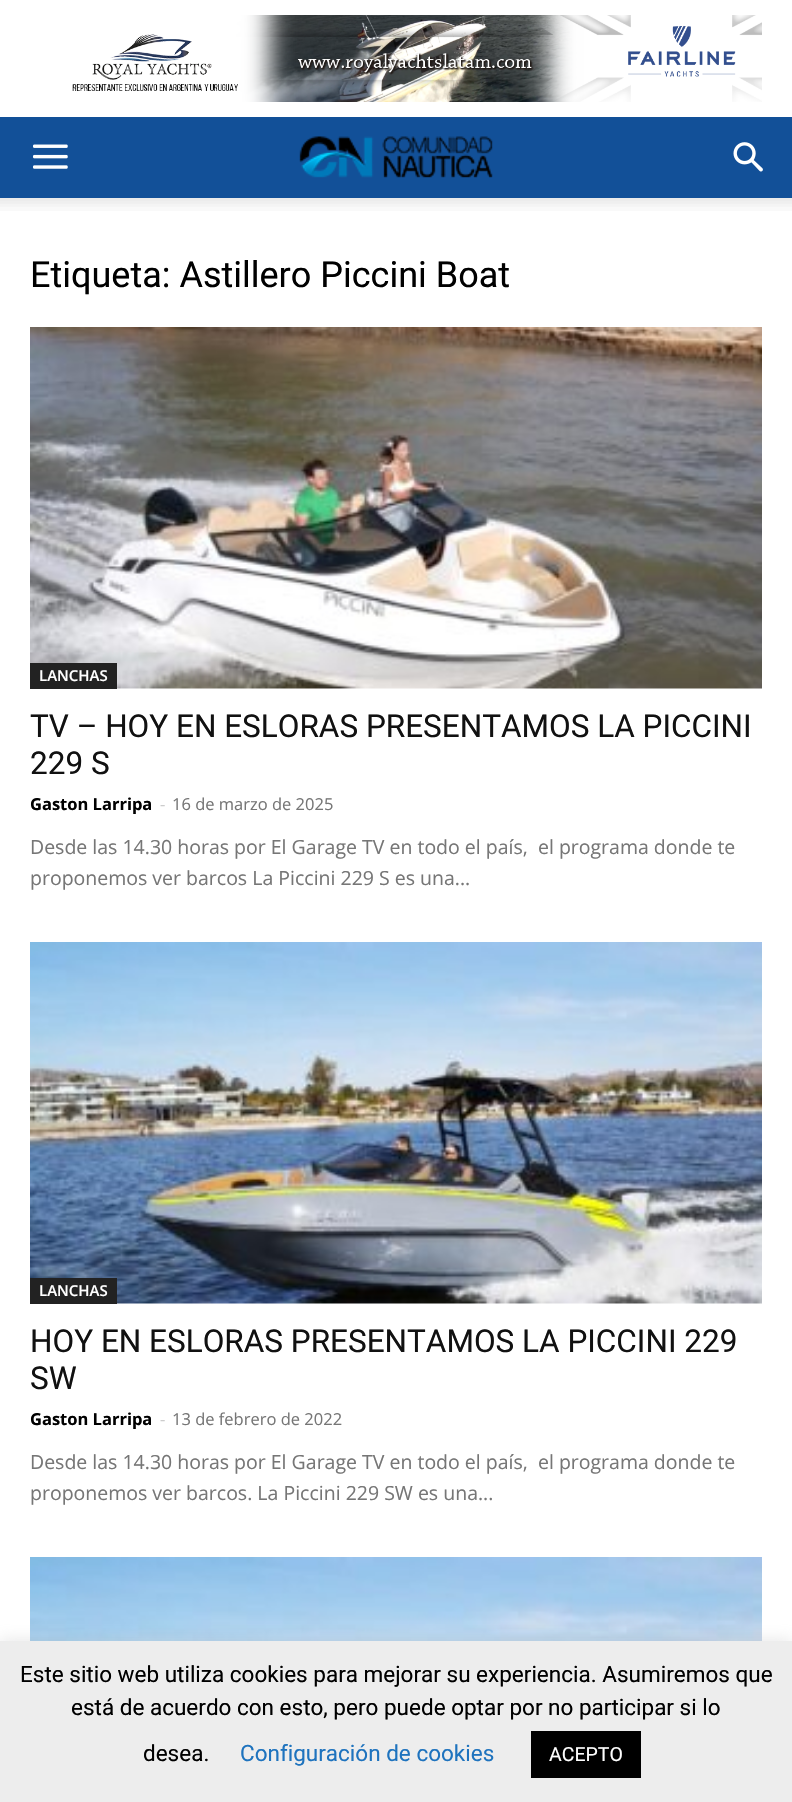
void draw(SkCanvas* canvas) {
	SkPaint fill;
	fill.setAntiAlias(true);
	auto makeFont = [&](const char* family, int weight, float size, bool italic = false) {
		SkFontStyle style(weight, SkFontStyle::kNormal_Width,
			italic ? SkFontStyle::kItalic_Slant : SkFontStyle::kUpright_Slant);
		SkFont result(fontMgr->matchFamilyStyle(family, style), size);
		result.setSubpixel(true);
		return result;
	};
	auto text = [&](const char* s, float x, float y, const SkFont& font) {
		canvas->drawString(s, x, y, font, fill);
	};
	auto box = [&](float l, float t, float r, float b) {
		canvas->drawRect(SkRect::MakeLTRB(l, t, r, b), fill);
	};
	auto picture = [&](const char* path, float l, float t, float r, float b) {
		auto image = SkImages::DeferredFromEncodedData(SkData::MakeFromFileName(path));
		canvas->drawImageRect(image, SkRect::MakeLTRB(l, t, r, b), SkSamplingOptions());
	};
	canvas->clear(0xFFFFFFFF);
	picture("image0.png", 72, 15, 762, 102);
	fill.setColor(0xFF125098);
	box(0, 117, 792, 198);
	picture("image1.png", 33, 144, 68, 169);
	picture("image2.png", 299, 136, 493, 178);
	picture("image3.png", 733, 142, 763, 172);
	picture("image4.png", 0, 198, 792, 211);
	picture("image5.png", 30, 327, 762, 689);
	fill.setColor(0xFF222222);
	box(30, 663, 117, 689);
	picture("image6.png", 30, 942, 762, 1304);
	box(30, 1278, 117, 1304);
	picture("image7.png", 30, 1557, 762, 1641);
	fill.setColor(0x4DACABAB);
	fill.setMaskFilter(SkMaskFilter::MakeBlur(kNormal_SkBlurStyle, 7.5f));
	canvas->drawRect(SkRect::MakeLTRB(0, 1640, 792, 1802), fill);
	fill.setMaskFilter(nullptr);
	fill.setColor(0xFFEDEDED);
	box(0, 1641, 792, 1802);
	fill.setColor(0xFF000000);
	box(531, 1731, 641, 1778);
	auto font1 = makeFont("Roboto", 400, 36);
	text("Etiqueta: Astillero Piccini Boat", 30, 287, font1);
	auto font2 = makeFont("Open Sans", 600, 15);
	fill.setColor(0xFFFFFFFF);
	text("LANCHAS", 39, 681, font2);
	auto font3 = makeFont("Roboto", 400, 31.5f);
	fill.setColor(0xFF111111);
	text("TV – HOY EN ESLORAS PRESENTAMOS LA PICCINI", 30, 737, font3);
	text("229 S", 30, 774, font3);
	auto font4 = makeFont("Open Sans", 700, 16.5f);
	fill.setColor(0xFF000000);
	text("Gaston Larripa", 30, 810, font4);
	auto font5 = makeFont("Open Sans", 400, 16.5f);
	fill.setColor(0xFFCCCCCC);
	text("-", 160, 810, font5);
	fill.setColor(0xFF767676);
	text("16 de marzo de 2025", 172, 810, font5);
	auto font6 = makeFont("Open Sans", 400, 19.5f);
	text("Desde las 14.30 horas por El Garage TV en todo el país,  el programa donde te", 30, 854, font6);
	text("proponemos ver barcos La Piccini 229 S es una...", 30, 885, font6);
	fill.setColor(0xFFFFFFFF);
	text("LANCHAS", 39, 1296, font2);
	fill.setColor(0xFF111111);
	text("HOY EN ESLORAS PRESENTAMOS LA PICCINI 229", 30, 1352, font3);
	text("SW", 30, 1389, font3);
	fill.setColor(0xFF000000);
	text("Gaston Larripa", 30, 1425, font4);
	fill.setColor(0xFFCCCCCC);
	text("-", 160, 1425, font5);
	fill.setColor(0xFF767676);
	text("13 de febrero de 2022", 172, 1425, font5);
	text("Desde las 14.30 horas por El Garage TV en todo el país,  el programa donde te", 30, 1469, font6);
	text("proponemos ver barcos. La Piccini 229 SW es una...", 30, 1500, font6);
	auto font7 = makeFont("Roboto", 400, 22.5f);
	fill.setColor(0xFF000000);
	text("Este sitio web utiliza cookies para mejorar su experiencia. Asumiremos que", 20, 1682, font7);
	text("está de acuerdo con esto, pero puede optar por no participar si lo", 71, 1715, font7);
	text("desea.", 143, 1761, font7);
	fill.setColor(0xFF1E73BE);
	text("Configuración de cookies", 240, 1761, font7);
	auto font8 = makeFont("Roboto", 400, 19.5f);
	fill.setColor(0xFFFFFFFF);
	text("ACEPTO", 549, 1761, font8);
}
